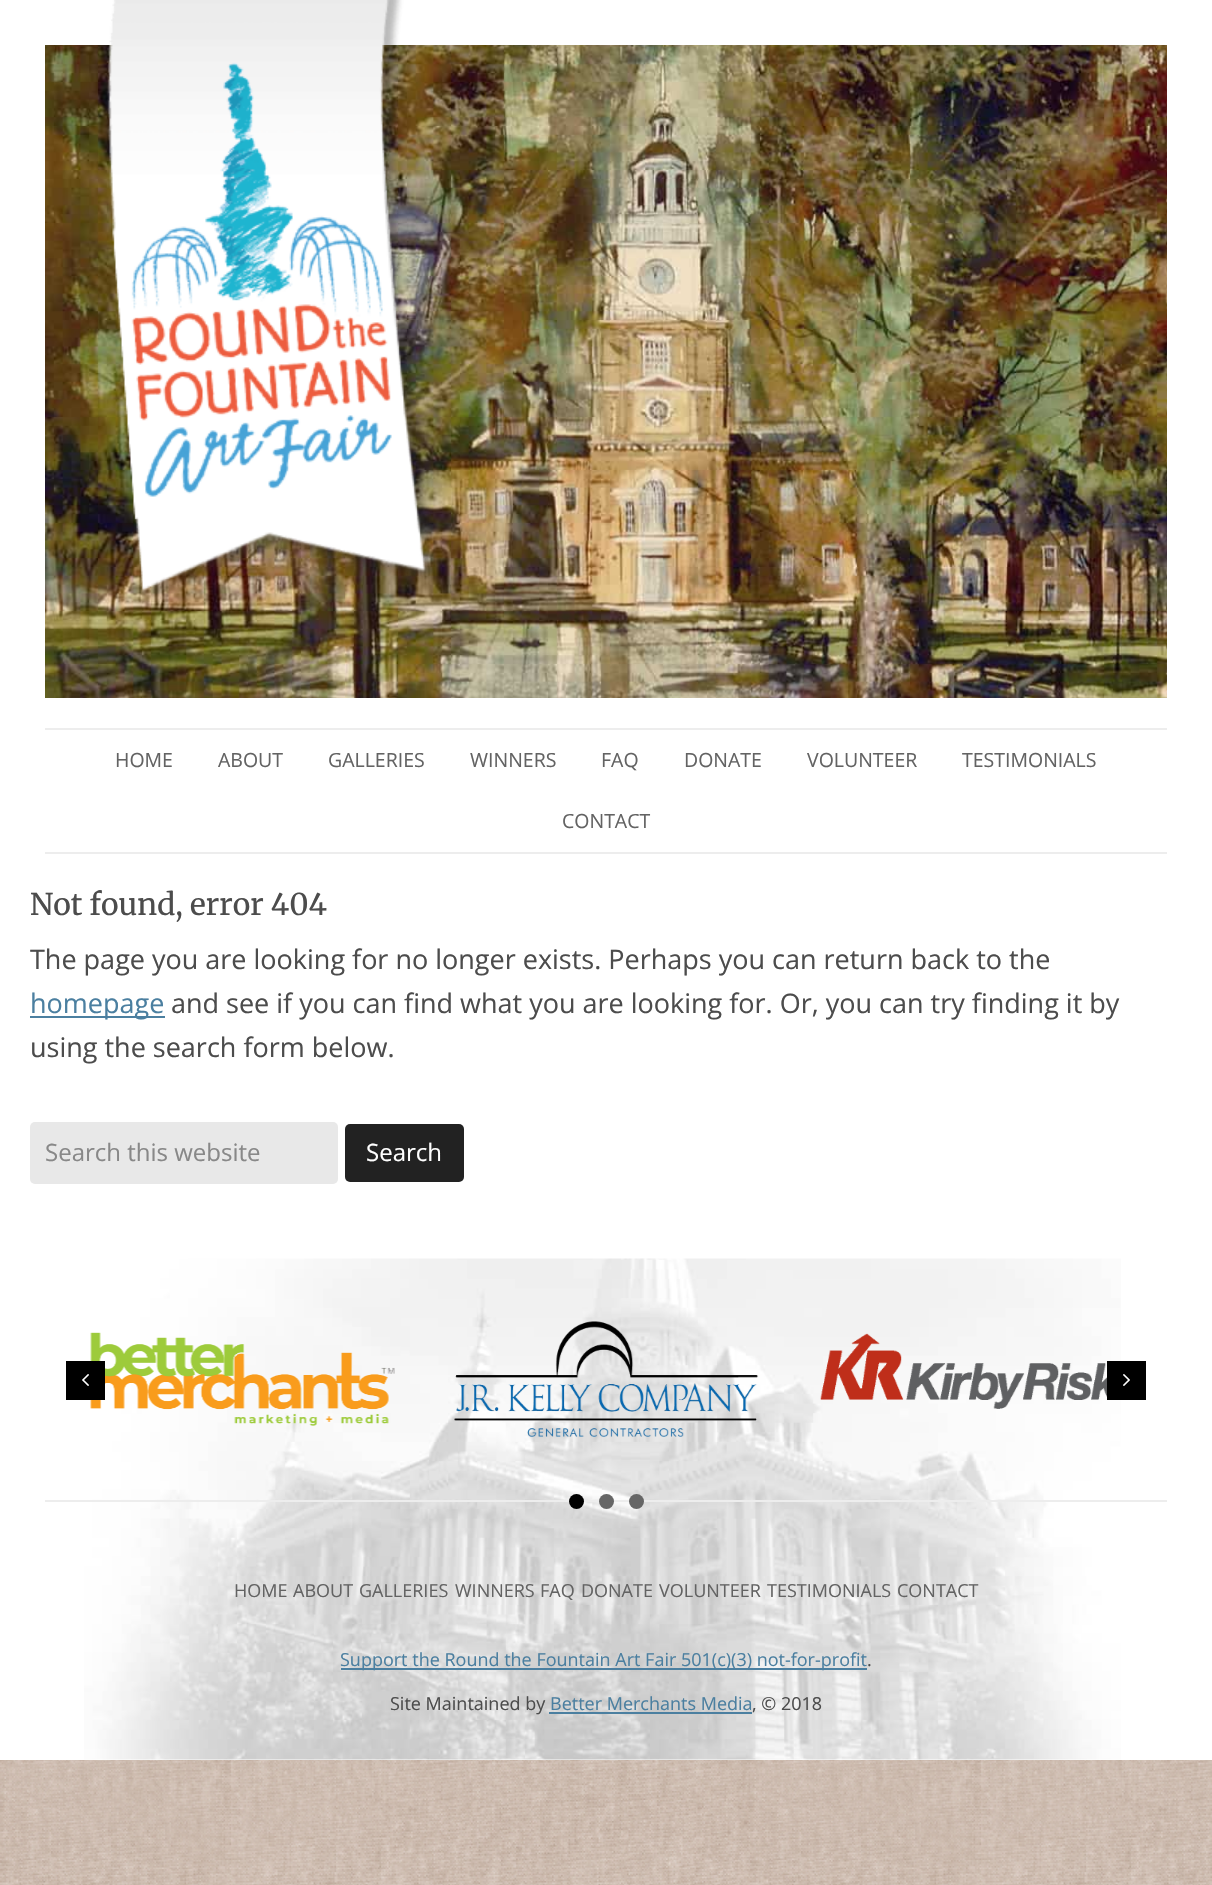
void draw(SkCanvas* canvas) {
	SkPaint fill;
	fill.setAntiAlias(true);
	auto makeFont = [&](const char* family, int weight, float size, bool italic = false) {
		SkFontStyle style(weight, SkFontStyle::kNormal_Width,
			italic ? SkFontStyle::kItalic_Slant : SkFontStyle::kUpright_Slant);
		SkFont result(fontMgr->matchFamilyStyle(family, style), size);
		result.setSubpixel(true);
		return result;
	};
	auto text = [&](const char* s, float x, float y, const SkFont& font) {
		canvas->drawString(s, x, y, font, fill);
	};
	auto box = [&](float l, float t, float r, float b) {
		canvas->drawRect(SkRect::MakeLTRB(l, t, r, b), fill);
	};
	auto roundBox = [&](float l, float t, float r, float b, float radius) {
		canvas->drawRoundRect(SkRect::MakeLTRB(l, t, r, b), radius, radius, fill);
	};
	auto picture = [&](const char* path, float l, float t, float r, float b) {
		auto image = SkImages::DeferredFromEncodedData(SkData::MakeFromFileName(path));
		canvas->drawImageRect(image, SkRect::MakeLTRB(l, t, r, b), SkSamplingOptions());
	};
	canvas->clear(0xFFFFFFFF);
	picture("image0.png", 0, 1760, 1212, 1885);
	picture("image2.png", 45, 45, 1167, 698);
	picture("image1.png", 107, 0, 435, 600);
	fill.setColor(0xFFEDEDED);
	box(45, 728, 1167, 730);
	box(45, 852, 1167, 854);
	fill.setColor(0xFF4B7FA0);
	box(30, 1016, 165, 1018);
	fill.setColor(0xFFE8E8E8);
	roundBox(30, 1122, 338, 1184, 5);
	fill.setColor(0xFF222222);
	roundBox(345, 1124, 464, 1182, 5);
	picture("image3.png", 84, 1258, 1121, 1760);
	picture("image5.png", 90, 1332, 395, 1426);
	fill.setColor(0xFF000000);
	box(66, 1361, 105, 1400);
	picture("image4.png", 82, 1374, 89, 1386);
	picture("image6.png", 454, 1321, 759, 1437);
	picture("image7.png", 820, 1333, 1107, 1409);
	fill.setColor(0xFFEDEDED);
	box(45, 1500, 1167, 1502);
	fill.setColor(0xFF000000);
	canvas->drawCircle(576.5f, 1501.5f, 7.5f, fill);
	fill.setColor(0xFF666666);
	canvas->drawCircle(606.5f, 1501.5f, 7.5f, fill);
	canvas->drawCircle(636.5f, 1501.5f, 7.5f, fill);
	fill.setColor(0xFF000000);
	box(1107, 1361, 1146, 1400);
	picture("image8.png", 1123, 1374, 1130, 1386);
	fill.setColor(0xFF4B7FA0);
	box(341, 1668, 867, 1670);
	box(549, 1712, 752, 1714);
	auto font1 = makeFont("Open Sans", 400, 19.5f);
	fill.setColor(0xFF636363);
	text("HOME", 115, 767, font1);
	text("ABOUT", 218, 767, font1);
	text("GALLERIES", 328, 767, font1);
	text("WINNERS", 470, 767, font1);
	text("FAQ", 601, 767, font1);
	text("DONATE", 684, 767, font1);
	text("VOLUNTEER", 807, 767, font1);
	text("TESTIMONIALS", 962, 767, font1);
	text("CONTACT", 562, 828, font1);
	auto font2 = makeFont("Merriweather", 400, 30);
	fill.setColor(0xFF4C4C4C);
	text("Not found, error 404", 30, 915, font2);
	auto font3 = makeFont("Open Sans", 400, 27);
	text("The page you are looking for no longer exists. Perhaps you can return back to the", 30, 969, font3);
	fill.setColor(0xFF4B7FA0);
	text("homepage", 30, 1013, font3);
	fill.setColor(0xFF4C4C4C);
	text("and see if you can find what you are looking for. Or, you can try finding it by", 171, 1013, font3);
	text("using the search form below.", 30, 1057, font3);
	auto font4 = makeFont("Open Sans", 400, 24);
	fill.setColor(0xFF888888);
	text("Search this website", 45, 1161, font4);
	fill.setColor(0xFFFFFFFF);
	text("Search", 366, 1161, font4);
	auto font5 = makeFont("Open Sans", 400, 18);
	fill.setColor(0xFF636363);
	text("HOME", 234, 1597, font5);
	text("ABOUT", 293, 1597, font5);
	text("GALLERIES", 359, 1597, font5);
	text("WINNERS", 455, 1597, font5);
	text("FAQ", 540, 1597, font5);
	text("DONATE", 581, 1597, font5);
	text("VOLUNTEER", 659, 1597, font5);
	text("TESTIMONIALS", 767, 1597, font5);
	text("CONTACT", 897, 1597, font5);
	fill.setColor(0xFF4B7FA0);
	text("Support the Round the Fountain Art Fair 501(c)(3) not-for-profit", 340, 1666, font5);
	fill.setColor(0xFF4C4C4C);
	text(".", 867, 1666, font5);
	text("Site Maintained by", 390, 1710, font5);
	fill.setColor(0xFF4B7FA0);
	text("Better Merchants Media", 550, 1710, font5);
	fill.setColor(0xFF4C4C4C);
	text(", © 2018", 752, 1710, font5);
}
